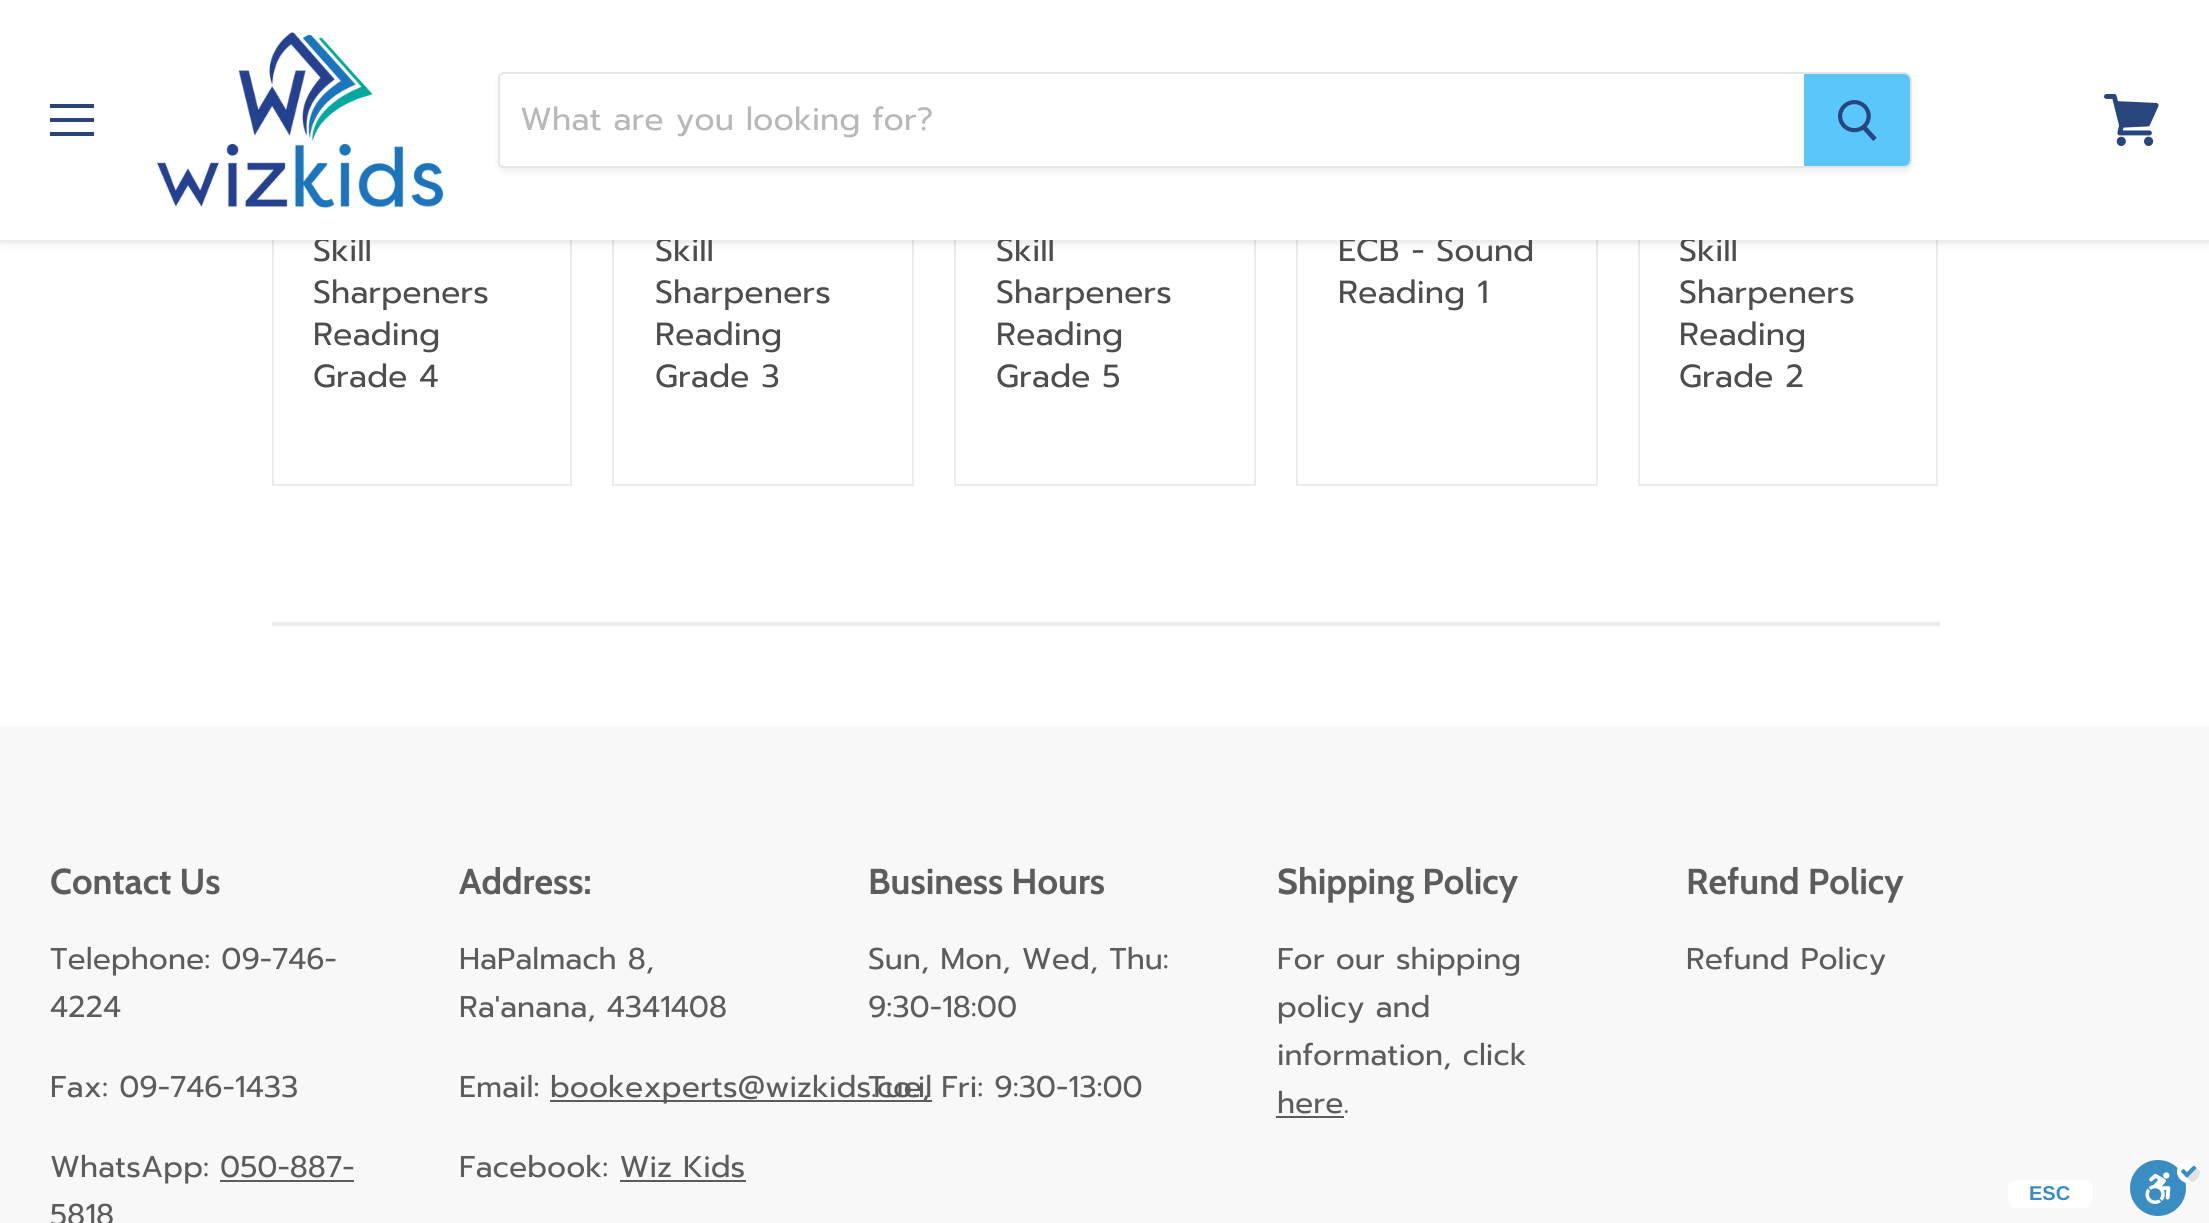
import math
import cairo

surface = cairo.ImageSurface(cairo.Format.RGB24, 2209, 1223)
ctx = cairo.Context(surface)
options = cairo.FontOptions()
options.set_hint_metrics(cairo.HintMetrics.OFF)
options.set_hint_style(cairo.HintStyle.NONE)
ctx.set_font_options(options)
ctx.set_miter_limit(4)


def ink(r, g, b):
    ctx.set_source_rgb(r / 255, g / 255, b / 255)


def write(x, y, s, family, size, color, bold=False, italic=False):
    ctx.select_font_face(family, cairo.FontSlant.ITALIC if italic else cairo.FontSlant.NORMAL, cairo.FontWeight.BOLD if bold else cairo.FontWeight.NORMAL)
    ctx.set_font_size(size)
    ink(*color)
    ctx.move_to(x, y)
    ctx.show_text(s)


def block(x, y, w, h, *color):
    ink(*color)
    ctx.rectangle(x, y, w, h)
    ctx.fill()


def round_path(x, y, w, h, r):
    ctx.new_sub_path()
    for i, (u, v) in enumerate([(x + w - r, y + h - r), (x + r, y + h - r), (x + r, y + r), (x + w - r, y + r)]):
        ctx.arc(u, v, r, i * math.pi / 2, (i + 1) * math.pi / 2)
    ctx.close_path()


def blur_box(x, y, w, h, r, blur, alpha):
    ctx.push_group_with_content(cairo.Content.ALPHA)
    ctx.set_operator(cairo.Operator.SOURCE)
    for i in range(15, -16, -2):
        e = blur * i / 6
        if min(w, h) + 2 * e > 0:
            ctx.set_source_rgba(0, 0, 0, alpha * math.erfc((i - 1) / 8.5) / 2)
            round_path(x - e, y - e, w + 2 * e, h + 2 * e, max(0, min(r + e + blur * .6, min(w, h) / 2 + e)))
            ctx.fill()
    ctx.mask(ctx.pop_group())


def paste(path, x, y, w, h):
    ctx.save()
    ctx.set_source_surface(cairo.ImageSurface.create_from_png(path), x, y)
    ctx.rectangle(x, y, w, h)
    ctx.fill()
    ctx.restore()


s1 = dict(family="Prompt", size=32, color=(77, 77, 77))
s2 = dict(family="Prompt", size=32, color=(184, 184, 184))
s3 = dict(family="Cabin", size=36, color=(92, 92, 92), bold=True)
s4 = dict(family="Prompt", size=30, color=(92, 92, 92))
s5 = dict(family="Liberation Sans", size=20, color=(58, 141, 194), bold=True)

ink(255, 255, 255)
ctx.paint()
ctx.rectangle(273, -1, 298, 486)
ink(235, 235, 235)
ctx.stroke()
ctx.rectangle(613, -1, 300, 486)
ctx.stroke()
ctx.rectangle(955, -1, 300, 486)
ctx.stroke()
ctx.rectangle(1297, -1, 300, 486)
ctx.stroke()
ctx.rectangle(1639, -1, 298, 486)
ctx.stroke()
ink(127, 127, 127)
blur_box(0, 126, 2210, 116, 0, 4, 0.25)
write(313, 261, "Skill", **s1)
write(655, 261, "Skill", **s1)
write(996, 261, "Skill", **s1)
write(1338, 261, "ECB - Sound", **s1)
write(1679, 261, "Skill", **s1)
block(0, 0, 2209, 240, 255, 255, 255)
block(50, 104, 44, 4, 40, 69, 125)
block(50, 118, 44, 4, 40, 69, 125)
block(50, 132, 44, 4, 40, 69, 125)
paste("pic1.png", 157, 32, 287, 176)
ctx.save()
ctx.set_fill_rule(cairo.FillRule.EVEN_ODD)
ctx.new_path()
ctx.move_to(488, 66)
ctx.line_to(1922, 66)
ctx.line_to(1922, 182)
ctx.line_to(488, 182)
ctx.close_path()
ctx.move_to(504, 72)
ctx.line_to(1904, 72)
ctx.curve_to(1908.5, 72, 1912, 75.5, 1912, 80)
ctx.line_to(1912, 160)
ctx.curve_to(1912, 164.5, 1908.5, 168, 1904, 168)
ctx.line_to(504, 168)
ctx.curve_to(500.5, 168, 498, 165.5, 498, 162)
ctx.line_to(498, 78)
ctx.curve_to(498, 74.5, 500.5, 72, 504, 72)
ctx.close_path()
ctx.clip()
ink(127, 127, 127)
blur_box(498, 76, 1414, 96, 8, 3, 0.11)
ctx.restore()
ctx.new_path()
ctx.move_to(504, 73)
ctx.line_to(1904, 73)
ctx.curve_to(1908, 73, 1911, 76, 1911, 80)
ctx.line_to(1911, 160)
ctx.curve_to(1911, 164, 1908, 167, 1904, 167)
ctx.line_to(504, 167)
ctx.curve_to(501, 167, 499, 165, 499, 162)
ctx.line_to(499, 78)
ctx.curve_to(499, 75, 501, 73, 504, 73)
ctx.close_path()
ctx.set_source_rgba(0.498, 0.498, 0.498, 0.2)
ctx.stroke()
write(520, 130, "What are you looking for?", **s2)
ink(89, 199, 249)
ctx.new_path()
ctx.move_to(1805, 75)
ctx.line_to(1904, 75)
ctx.curve_to(1907, 75, 1909, 77, 1909, 80)
ctx.line_to(1909, 160)
ctx.curve_to(1909, 163, 1907, 165, 1904, 165)
ctx.line_to(1805, 165)
ctx.close_path()
ctx.fill_preserve()
ctx.stroke()
paste("pic2.png", 1838, 100, 39, 41)
paste("pic3.png", 2104, 94, 55, 52)
write(313, 303, "Sharpeners", **s1)
write(313, 345, "Reading", **s1)
write(313, 387, "Grade 4", **s1)
write(655, 303, "Sharpeners", **s1)
write(655, 345, "Reading", **s1)
write(655, 387, "Grade 3", **s1)
write(996, 303, "Sharpeners", **s1)
write(996, 345, "Reading", **s1)
write(996, 387, "Grade 5", **s1)
write(1338, 303, "Reading 1", **s1)
write(1679, 303, "Sharpeners", **s1)
write(1679, 345, "Reading", **s1)
write(1679, 387, "Grade 2", **s1)
block(272, 622, 1668, 4, 235, 235, 235)
block(0, 726, 2209, 497, 248, 248, 248)
write(50, 894, "Contact Us", **s3)
write(50, 969, "Telephone: 09-746-", **s4)
write(50, 1017, "4224", **s4)
write(50, 1097, "Fax: 09-746-1433", **s4)
write(50, 1177, "WhatsApp: 050-887-", **s4)
write(50, 1225, "5818", **s4)
block(220, 1180, 134, 2, 92, 92, 92)
write(459, 894, "Address:", **s3)
write(459, 969, "HaPalmach 8,", **s4)
write(459, 1017, "Ra'anana, 4341408", **s4)
write(459, 1097, "Email:", **s4)
block(550, 1100, 382, 2, 92, 92, 92)
write(550, 1097, "bookexperts@wizkids.co.il", **s4)
write(459, 1177, "Facebook: Wiz Kids", **s4)
block(620, 1180, 126, 2, 92, 92, 92)
write(868, 894, "Business Hours", **s3)
write(868, 969, "Sun, Mon, Wed, Thu:", **s4)
write(868, 1017, "9:30-18:00", **s4)
write(868, 1097, "Tue, Fri: 9:30-13:00", **s4)
write(1277, 894, "Shipping Policy", **s3)
write(1277, 969, "For our shipping", **s4)
write(1277, 1017, "policy and", **s4)
write(1277, 1065, "information, click", **s4)
write(1277, 1113, "here.", **s4)
block(1276, 1116, 68, 2, 92, 92, 92)
write(1686, 894, "Refund Policy", **s3)
write(1686, 969, "Refund Policy", **s4)
ink(255, 255, 255)
round_path(2008, 1180, 84, 28, 8)
ctx.fill()
write(2029, 1200, "ESC", **s5)
paste("pic4.png", 2130, 1160, 70, 56)
surface.write_to_png("screenshot.png")
